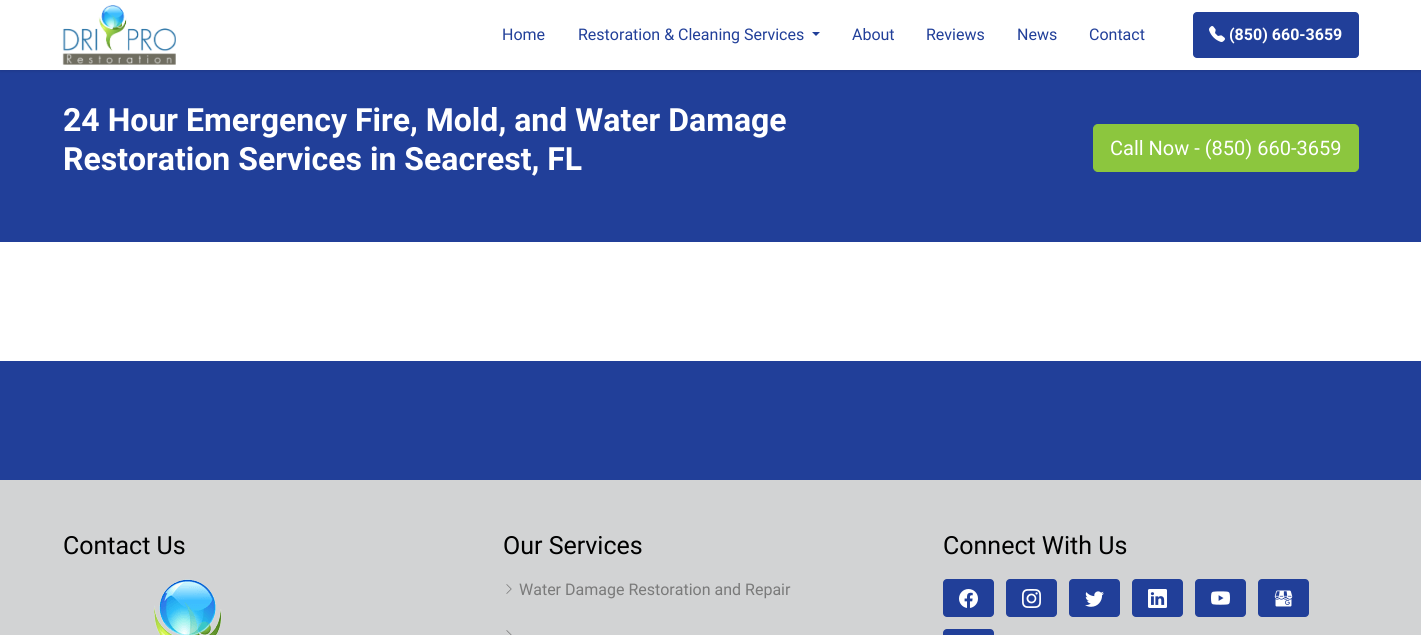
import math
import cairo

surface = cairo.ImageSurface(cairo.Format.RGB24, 1421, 635)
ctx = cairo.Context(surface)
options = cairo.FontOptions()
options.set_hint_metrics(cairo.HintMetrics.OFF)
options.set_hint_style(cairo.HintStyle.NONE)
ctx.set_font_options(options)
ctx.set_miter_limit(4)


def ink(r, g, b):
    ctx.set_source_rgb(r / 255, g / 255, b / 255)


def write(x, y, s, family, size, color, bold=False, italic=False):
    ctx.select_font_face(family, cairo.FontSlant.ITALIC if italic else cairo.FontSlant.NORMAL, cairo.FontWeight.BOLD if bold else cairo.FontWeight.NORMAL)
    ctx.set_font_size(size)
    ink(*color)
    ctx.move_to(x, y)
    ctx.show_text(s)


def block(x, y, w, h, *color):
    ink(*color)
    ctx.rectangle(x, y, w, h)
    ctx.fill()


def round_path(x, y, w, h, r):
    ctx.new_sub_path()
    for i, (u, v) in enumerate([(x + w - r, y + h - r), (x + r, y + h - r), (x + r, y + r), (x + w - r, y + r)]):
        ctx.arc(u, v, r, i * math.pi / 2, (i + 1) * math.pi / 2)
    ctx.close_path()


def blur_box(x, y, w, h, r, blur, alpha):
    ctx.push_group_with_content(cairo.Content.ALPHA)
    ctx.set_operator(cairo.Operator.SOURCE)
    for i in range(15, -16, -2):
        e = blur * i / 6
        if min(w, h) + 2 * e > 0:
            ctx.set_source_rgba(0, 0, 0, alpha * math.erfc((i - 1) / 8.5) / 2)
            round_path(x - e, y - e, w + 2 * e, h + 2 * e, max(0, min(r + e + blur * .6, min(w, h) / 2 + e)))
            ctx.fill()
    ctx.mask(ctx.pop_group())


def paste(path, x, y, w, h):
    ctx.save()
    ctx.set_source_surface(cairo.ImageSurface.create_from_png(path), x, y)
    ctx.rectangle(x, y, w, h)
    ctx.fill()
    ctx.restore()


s1 = dict(family="Roboto", size=16, color=(33, 63, 153))
s2 = dict(family="Roboto", size=16, color=(255, 255, 255), bold=True)
s3 = dict(family="Roboto", size=32, color=(255, 255, 255), bold=True)
s4 = dict(family="Roboto", size=20, color=(255, 255, 255))
s5 = dict(family="Roboto", size=25, color=(0, 0, 0))
s6 = dict(family="Roboto", size=16, color=(122, 122, 122))

ink(255, 255, 255)
ctx.paint()
block(0, 70, 1421, 172, 33, 63, 153)
ink(0, 0, 0)
blur_box(0, 1, 1421, 70, 0, 1.5, 0.12)
block(0, 0, 1421, 70, 255, 255, 255)
paste("pic1.png", 62, 5, 114, 60)
write(502, 40, "Home", **s1)
write(578, 40, "Restoration & Cleaning Services", **s1)
ctx.new_path()
ctx.move_to(812, 32)
ctx.line_to(820, 32)
ctx.line_to(816, 36)
ctx.close_path()
ctx.fill()
write(852, 40, "About", **s1)
write(926, 40, "Reviews", **s1)
write(1017, 40, "News", **s1)
write(1089, 40, "Contact", **s1)
round_path(1193, 12, 166, 46, 4)
ctx.fill()
paste("pic2.png", 1209, 26, 16, 16)
write(1229, 40, "(850) 660-3659", **s2)
write(63, 131, "24 Hour Emergency Fire, Mold, and Water Damage", **s3)
write(63, 170, "Restoration Services in Seacrest, FL", **s3)
ink(140, 198, 62)
round_path(1093.5, 124.5, 265, 47, 4.5)
ctx.fill_preserve()
ctx.set_line_width(1)
ctx.stroke()
write(1110, 155, "Call Now - (850) 660-3659", **s4)
block(0, 361, 1421, 119, 33, 63, 153)
block(0, 480, 1421, 155, 210, 211, 212)
write(63, 554, "Contact Us", **s5)
paste("pic3.png", 154, 579, 68, 56)
write(503, 554, "Our Services", **s5)
paste("pic4.png", 506, 584, 6, 10)
write(519, 595, "Water Damage Restoration and Repair", **s6)
paste("pic5.png", 506, 630, 6, 5)
write(943, 554, "Connect With Us", **s5)
ink(33, 63, 153)
round_path(943, 579, 51, 38, 4)
ctx.fill()
paste("pic6.png", 959, 589, 19, 19)
round_path(1006, 579, 51, 38, 4)
ctx.fill()
paste("pic7.png", 1022, 589, 19, 19)
round_path(1069, 579, 51, 38, 4)
ctx.fill()
paste("pic8.png", 1085, 591, 19, 16)
round_path(1132, 579, 51, 38, 4)
ctx.fill()
paste("pic9.png", 1148, 589, 19, 19)
round_path(1195, 579, 51, 38, 4)
ctx.fill()
paste("pic10.png", 1211, 591, 19, 14)
round_path(1258, 579, 51, 38, 4)
ctx.fill()
paste("pic11.png", 1274, 590, 19, 17)
round_path(943, 629, 51, 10, 4)
ctx.fill()
surface.write_to_png("screenshot.png")
